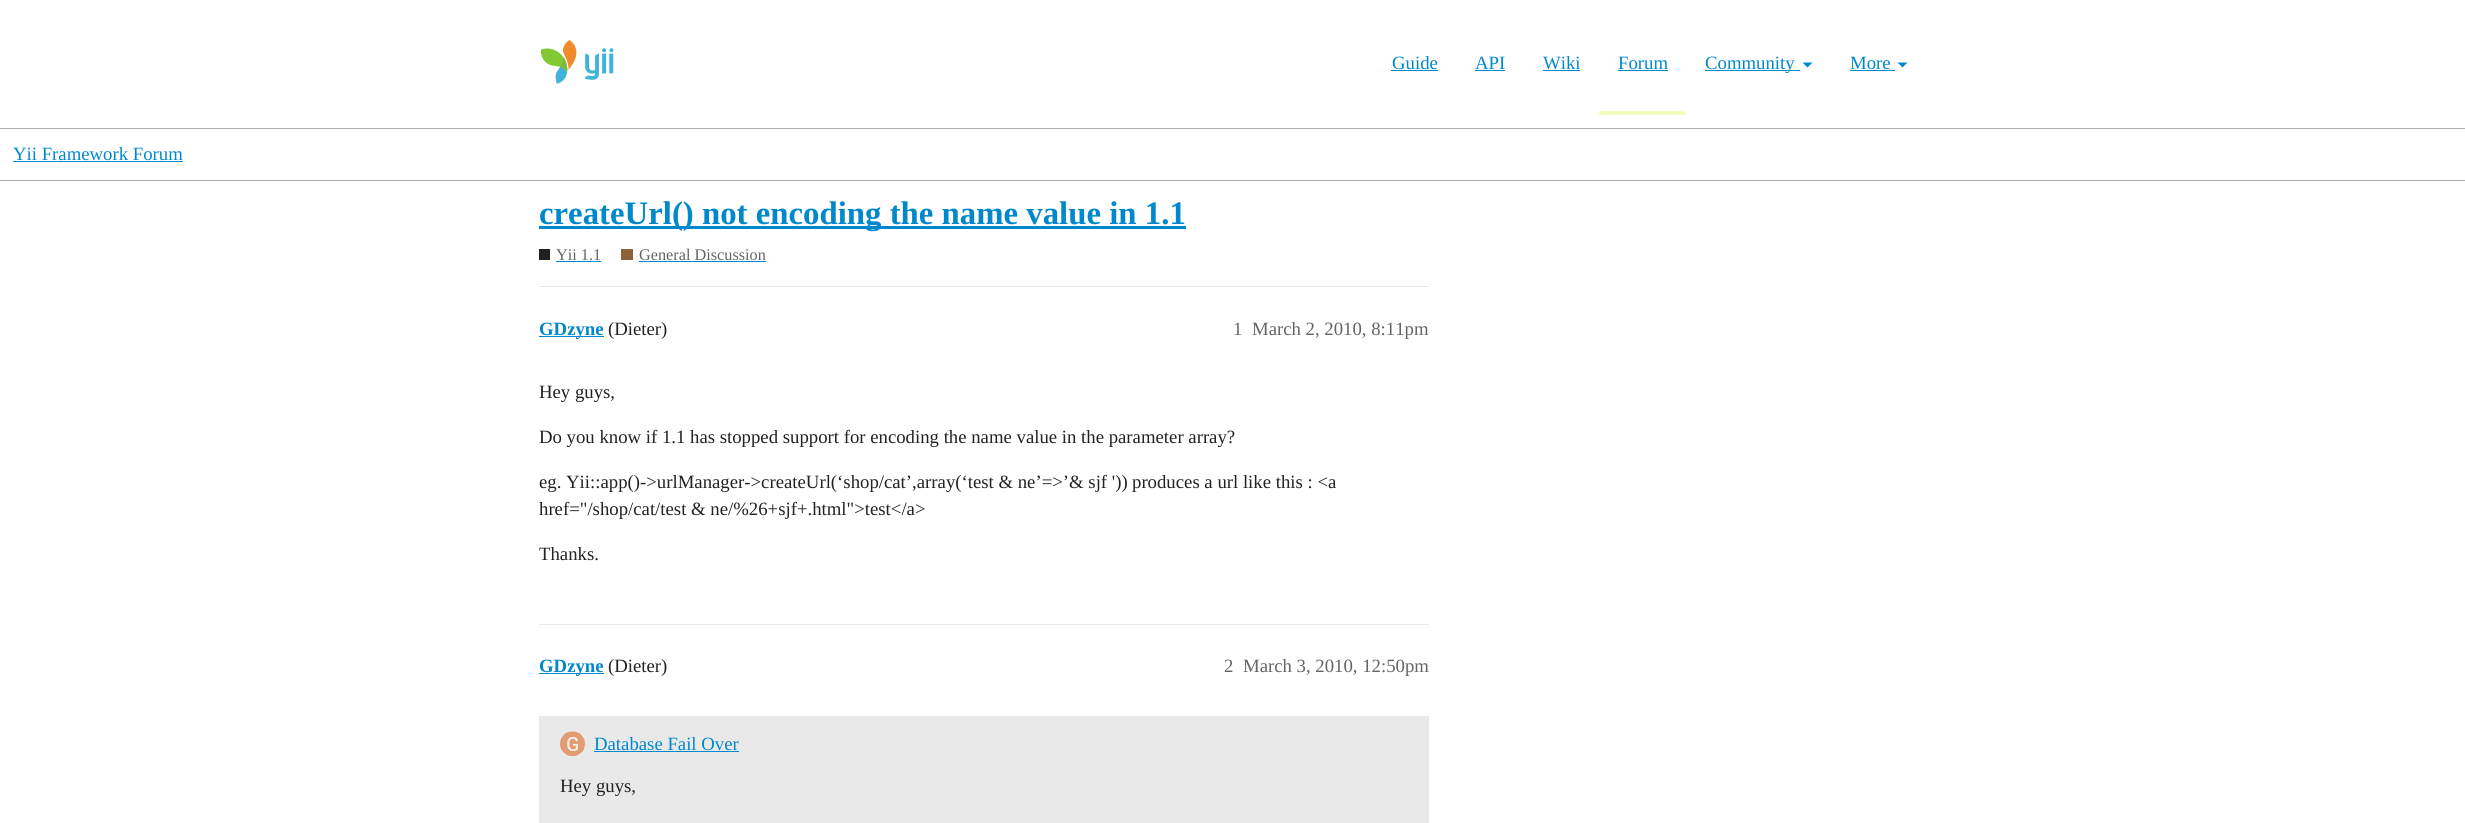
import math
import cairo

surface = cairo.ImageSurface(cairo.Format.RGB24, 2465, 823)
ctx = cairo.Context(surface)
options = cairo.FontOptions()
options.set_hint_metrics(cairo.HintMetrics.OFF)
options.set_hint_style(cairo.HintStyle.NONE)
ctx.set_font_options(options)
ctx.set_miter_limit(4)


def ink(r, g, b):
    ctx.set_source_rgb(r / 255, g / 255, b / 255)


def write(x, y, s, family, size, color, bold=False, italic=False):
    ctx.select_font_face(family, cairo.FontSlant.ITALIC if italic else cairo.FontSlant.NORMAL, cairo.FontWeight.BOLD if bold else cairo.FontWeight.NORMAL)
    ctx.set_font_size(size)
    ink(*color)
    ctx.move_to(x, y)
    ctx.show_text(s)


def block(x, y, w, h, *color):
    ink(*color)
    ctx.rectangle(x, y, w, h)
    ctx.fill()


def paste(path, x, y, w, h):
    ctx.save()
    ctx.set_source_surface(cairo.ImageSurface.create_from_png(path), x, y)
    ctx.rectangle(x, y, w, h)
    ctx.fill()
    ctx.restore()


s1 = dict(family="Liberation Serif", size=18.75, color=(0, 136, 204))
s2 = dict(family="Liberation Serif", size=32.8, color=(0, 136, 204), bold=True)
s3 = dict(family="Liberation Serif", size=16.25, color=(100, 100, 100))
s4 = dict(family="Liberation Serif", size=18.75, color=(0, 136, 204), bold=True)
s5 = dict(family="Liberation Serif", size=18.75, color=(34, 34, 34))
s6 = dict(family="Liberation Serif", size=18.75, color=(100, 100, 100))

ink(255, 255, 255)
ctx.paint()
block(0, 128, 2465, 1, 175, 175, 175)
paste("pic1.png", 540, 40, 74, 44)
write(1392, 69, "Guide", **s1)
block(1391, 70, 47, 1, 0, 136, 204)
write(1475, 69, "API", **s1)
block(1475, 70, 30, 1, 0, 136, 204)
write(1543, 69, "Wiki", **s1)
block(1543, 70, 37, 1, 0, 136, 204)
block(1599, 111, 87, 4, 243, 255, 189)
write(1618, 69, "Forum", **s1)
block(1618, 70, 50, 1, 0, 136, 204)
block(1705, 70, 95, 1, 0, 136, 204)
write(1705, 69, "Community", **s1)
ctx.new_path()
ctx.move_to(1802.5, 62.5)
ctx.line_to(1812.5, 62.5)
ctx.line_to(1807.5, 67.5)
ctx.close_path()
ctx.fill()
write(1850, 69, "More", **s1)
block(1850, 70, 45, 1, 0, 136, 204)
ctx.new_path()
ctx.move_to(1897.5, 62.5)
ctx.line_to(1907.5, 62.5)
ctx.line_to(1902.5, 67.5)
ctx.close_path()
ctx.fill()
block(0, 180, 2465, 1, 175, 175, 175)
write(13, 160, "Yii Framework Forum", **s1)
block(13, 161, 170, 1, 0, 136, 204)
block(539, 226, 647, 3, 0, 136, 204)
write(539, 224, "createUrl() not encoding the name value in 1.1", **s2)
block(539, 249, 11, 11, 35, 31, 32)
write(556, 260, "Yii 1.1", **s3)
block(556, 261, 45, 1, 0, 136, 204)
block(621, 249, 12, 11, 140, 98, 56)
write(639, 260, "General Discussion", **s3)
block(639, 261, 127, 1, 0, 136, 204)
block(539, 286, 890, 1, 233, 233, 233)
block(539, 336, 65, 1, 0, 136, 204)
write(539, 335, "GDzyne", **s4)
write(608, 335, "(Dieter)", **s5)
write(1233, 335, "1", **s6)
write(1252, 335, "March 2, 2010, 8:11pm", **s6)
write(539, 398, "Hey guys,", **s5)
write(539, 443, "Do you know if 1.1 has stopped support for encoding the name value in the parameter array?", **s5)
write(539, 488, "eg. Yii::app()->urlManager->createUrl(‘shop/cat’,array(‘test & ne’=>’& sjf '))", **s5)
write(1132, 488, "produces a url like this : <a", **s5)
write(539, 515, "href=\"/shop/cat/test & ne/%26+sjf+.html\">test</a>", **s5)
write(539, 560, "Thanks.", **s5)
block(539, 624, 890, 1, 233, 233, 233)
block(539, 673, 65, 1, 0, 136, 204)
write(539, 672, "GDzyne", **s4)
write(608, 672, "(Dieter)", **s5)
write(1224, 672, "2", **s6)
write(1243, 672, "March 3, 2010, 12:50pm", **s6)
block(539, 716, 890, 107, 233, 233, 233)
paste("pic2.png", 560, 731, 25, 26)
write(594, 750, "Database Fail Over", **s1)
block(594, 751, 145, 1, 0, 136, 204)
write(560, 792, "Hey guys,", **s5)
surface.write_to_png("screenshot.png")
